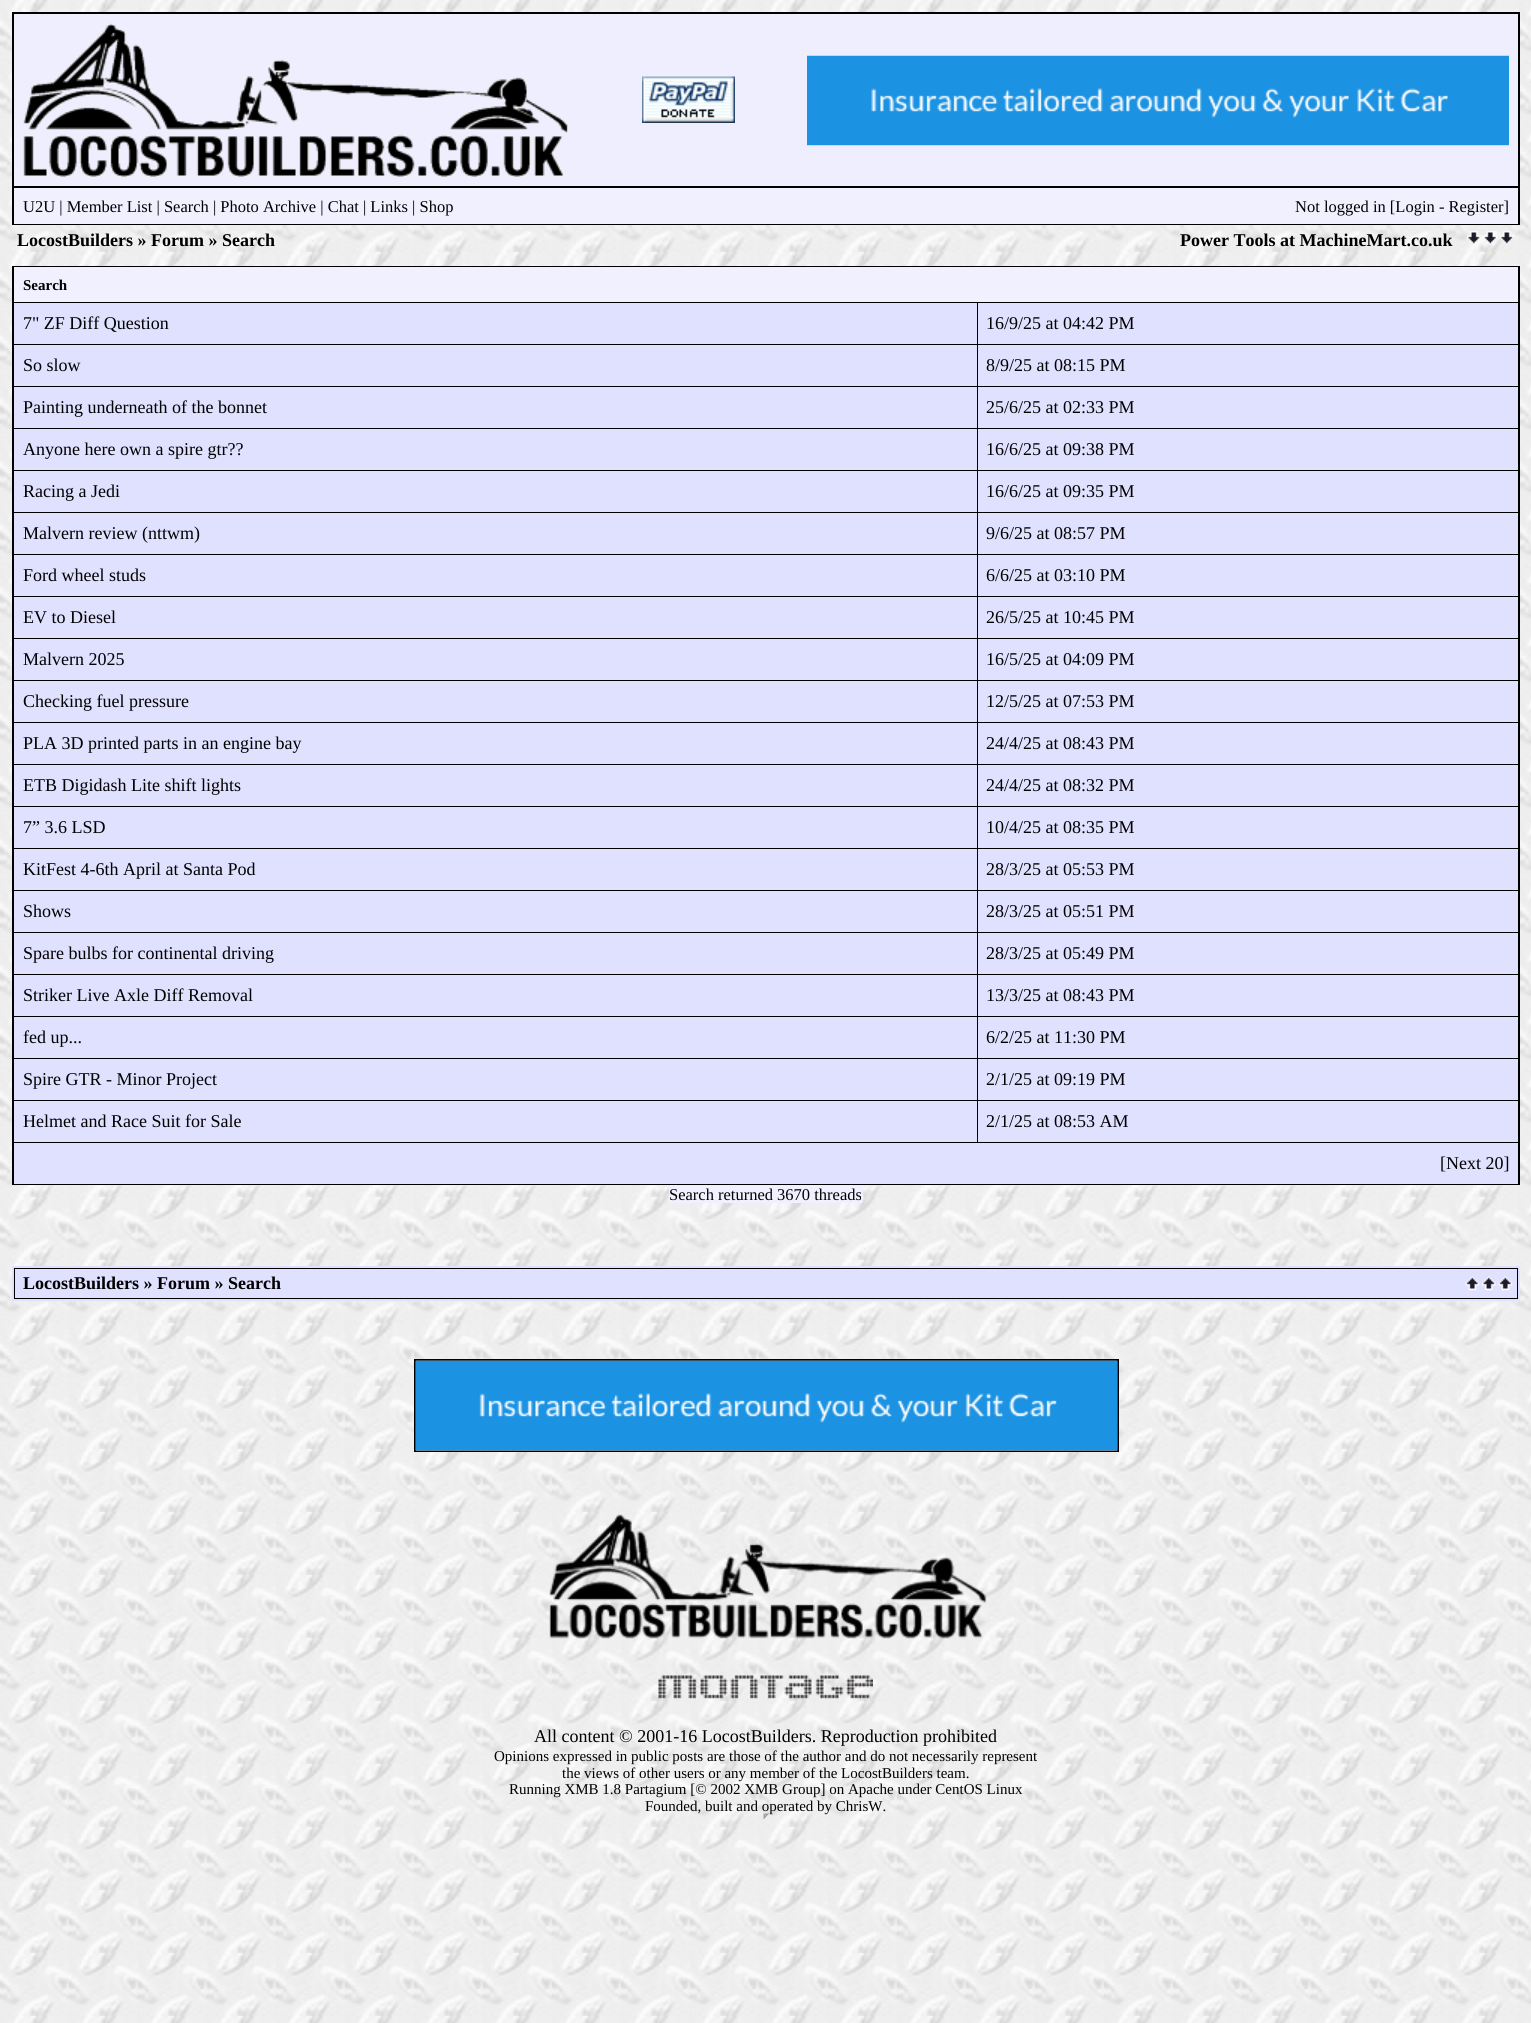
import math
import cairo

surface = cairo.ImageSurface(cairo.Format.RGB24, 1531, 2023)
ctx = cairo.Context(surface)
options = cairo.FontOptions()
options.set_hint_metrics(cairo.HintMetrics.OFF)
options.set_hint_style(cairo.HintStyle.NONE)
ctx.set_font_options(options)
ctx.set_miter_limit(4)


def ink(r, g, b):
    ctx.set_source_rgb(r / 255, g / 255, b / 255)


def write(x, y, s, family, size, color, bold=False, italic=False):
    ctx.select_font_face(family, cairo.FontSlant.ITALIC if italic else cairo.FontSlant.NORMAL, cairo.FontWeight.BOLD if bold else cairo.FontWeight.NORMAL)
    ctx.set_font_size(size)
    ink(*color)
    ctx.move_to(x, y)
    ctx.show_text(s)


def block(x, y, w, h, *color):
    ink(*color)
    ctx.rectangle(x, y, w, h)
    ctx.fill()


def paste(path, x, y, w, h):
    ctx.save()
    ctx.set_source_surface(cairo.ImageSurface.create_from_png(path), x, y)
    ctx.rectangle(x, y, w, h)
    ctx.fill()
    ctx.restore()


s1 = dict(family="Liberation Serif", size=16.5, color=(0, 0, 0))
s2 = dict(family="Liberation Serif", size=18, color=(0, 0, 0), bold=True)
s3 = dict(family="Liberation Serif", size=15, color=(0, 0, 0), bold=True)
s4 = dict(family="Liberation Serif", size=18, color=(0, 0, 0))
s5 = dict(family="Liberation Serif", size=15, color=(0, 0, 0))

ink(255, 255, 255)
ctx.paint()
paste("pic1.png", 0, 0, 1531, 2023)
block(12, 12, 1508, 213, 0, 0, 0)
block(14, 14, 1504, 172, 238, 238, 255)
paste("pic2.png", 23, 23, 545, 154)
paste("pic3.png", 642, 76, 93, 47)
paste("pic4.png", 807, 55, 702, 91)
block(14, 188, 1504, 36, 240, 240, 255)
write(23, 212, "U2U | Member List | Search | Photo Archive | Chat | Links | Shop", **s1)
write(1295, 212, "Not logged in [Login - Register]", **s1)
write(17, 246, "LocostBuilders » Forum » Search", **s2)
write(1180, 246, "Power Tools at MachineMart.co.uk", **s2)
paste("pic5.png", 1467, 231, 47, 14)
block(12, 266, 1508, 919, 0, 0, 0)
block(14, 267, 1504, 35, 240, 240, 255)
write(23, 290, "Search", **s3)
block(14, 303, 963, 41, 224, 224, 255)
write(23, 329, "7\" ZF Diff Question", **s4)
block(978, 303, 540, 41, 224, 224, 255)
write(986, 329, "16/9/25 at 04:42 PM", **s4)
block(14, 345, 963, 41, 224, 224, 255)
write(23, 371, "So slow", **s4)
block(978, 345, 540, 41, 224, 224, 255)
write(986, 371, "8/9/25 at 08:15 PM", **s4)
block(14, 387, 963, 41, 224, 224, 255)
write(23, 413, "Painting underneath of the bonnet", **s4)
block(978, 387, 540, 41, 224, 224, 255)
write(986, 413, "25/6/25 at 02:33 PM", **s4)
block(14, 429, 963, 41, 224, 224, 255)
write(23, 455, "Anyone here own a spire gtr??", **s4)
block(978, 429, 540, 41, 224, 224, 255)
write(986, 455, "16/6/25 at 09:38 PM", **s4)
block(14, 471, 963, 41, 224, 224, 255)
write(23, 497, "Racing a Jedi", **s4)
block(978, 471, 540, 41, 224, 224, 255)
write(986, 497, "16/6/25 at 09:35 PM", **s4)
block(14, 513, 963, 41, 224, 224, 255)
write(23, 539, "Malvern review (nttwm)", **s4)
block(978, 513, 540, 41, 224, 224, 255)
write(986, 539, "9/6/25 at 08:57 PM", **s4)
block(14, 555, 963, 41, 224, 224, 255)
write(23, 581, "Ford wheel studs", **s4)
block(978, 555, 540, 41, 224, 224, 255)
write(986, 581, "6/6/25 at 03:10 PM", **s4)
block(14, 597, 963, 41, 224, 224, 255)
write(23, 623, "EV to Diesel", **s4)
block(978, 597, 540, 41, 224, 224, 255)
write(986, 623, "26/5/25 at 10:45 PM", **s4)
block(14, 639, 963, 41, 224, 224, 255)
write(23, 665, "Malvern 2025", **s4)
block(978, 639, 540, 41, 224, 224, 255)
write(986, 665, "16/5/25 at 04:09 PM", **s4)
block(14, 681, 963, 41, 224, 224, 255)
write(23, 707, "Checking fuel pressure", **s4)
block(978, 681, 540, 41, 224, 224, 255)
write(986, 707, "12/5/25 at 07:53 PM", **s4)
block(14, 723, 963, 41, 224, 224, 255)
write(23, 749, "PLA 3D printed parts in an engine bay", **s4)
block(978, 723, 540, 41, 224, 224, 255)
write(986, 749, "24/4/25 at 08:43 PM", **s4)
block(14, 765, 963, 41, 224, 224, 255)
write(23, 791, "ETB Digidash Lite shift lights", **s4)
block(978, 765, 540, 41, 224, 224, 255)
write(986, 791, "24/4/25 at 08:32 PM", **s4)
block(14, 807, 963, 41, 224, 224, 255)
write(23, 833, "7” 3.6 LSD", **s4)
block(978, 807, 540, 41, 224, 224, 255)
write(986, 833, "10/4/25 at 08:35 PM", **s4)
block(14, 849, 963, 41, 224, 224, 255)
write(23, 875, "KitFest 4-6th April at Santa Pod", **s4)
block(978, 849, 540, 41, 224, 224, 255)
write(986, 875, "28/3/25 at 05:53 PM", **s4)
block(14, 891, 963, 41, 224, 224, 255)
write(23, 917, "Shows", **s4)
block(978, 891, 540, 41, 224, 224, 255)
write(986, 917, "28/3/25 at 05:51 PM", **s4)
block(14, 933, 963, 41, 224, 224, 255)
write(23, 959, "Spare bulbs for continental driving", **s4)
block(978, 933, 540, 41, 224, 224, 255)
write(986, 959, "28/3/25 at 05:49 PM", **s4)
block(14, 975, 963, 41, 224, 224, 255)
write(23, 1001, "Striker Live Axle Diff Removal", **s4)
block(978, 975, 540, 41, 224, 224, 255)
write(986, 1001, "13/3/25 at 08:43 PM", **s4)
block(14, 1017, 963, 41, 224, 224, 255)
write(23, 1043, "fed up...", **s4)
block(978, 1017, 540, 41, 224, 224, 255)
write(986, 1043, "6/2/25 at 11:30 PM", **s4)
block(14, 1059, 963, 41, 224, 224, 255)
write(23, 1085, "Spire GTR - Minor Project", **s4)
block(978, 1059, 540, 41, 224, 224, 255)
write(986, 1085, "2/1/25 at 09:19 PM", **s4)
block(14, 1101, 963, 41, 224, 224, 255)
write(23, 1127, "Helmet and Race Suit for Sale", **s4)
block(978, 1101, 540, 41, 224, 224, 255)
write(986, 1127, "2/1/25 at 08:53 AM", **s4)
block(14, 1143, 1504, 41, 224, 224, 255)
write(1440, 1169, "[Next 20]", **s4)
block(669, 1185, 194, 18, 240, 240, 255)
write(669, 1200, "Search returned 3670 threads", **s1)
block(12, 1266, 1508, 35, 224, 224, 255)
block(14, 1268, 1504, 31, 0, 0, 0)
block(15, 1269, 1502, 29, 224, 224, 255)
write(23, 1289, "LocostBuilders » Forum » Search", **s2)
paste("pic6.png", 1465, 1276, 48, 15)
block(414, 1359, 705, 93, 0, 0, 0)
paste("pic7.png", 415, 1360, 703, 91)
paste("pic8.png", 549, 1514, 438, 125)
paste("pic9.png", 658, 1675, 215, 24)
write(534, 1742, "All content © 2001-16 LocostBuilders. Reproduction prohibited", **s4)
write(494, 1761, "Opinions expressed in public posts are those of the author and do not necessarily represent", **s5)
write(562, 1778, "the views of other users or any member of the LocostBuilders team.", **s5)
write(509, 1794, "Running XMB 1.8 Partagium [© 2002 XMB Group] on Apache under CentOS Linux", **s5)
write(645, 1811, "Founded, built and operated by ChrisW.", **s5)
ink(159, 159, 159)
ctx.new_path()
ctx.move_to(763.5, 1813.5)
ctx.line_to(769.5, 1813.5)
ctx.line_to(766.5, 1816.5)
ctx.close_path()
ctx.fill()
ink(238, 238, 238)
ctx.new_path()
ctx.move_to(769.5, 1813.5)
ctx.line_to(769.5, 1819.5)
ctx.line_to(766.5, 1816.5)
ctx.close_path()
ctx.fill()
ctx.new_path()
ctx.move_to(769.5, 1819.5)
ctx.line_to(763.5, 1819.5)
ctx.line_to(766.5, 1816.5)
ctx.close_path()
ctx.fill()
ink(159, 159, 159)
ctx.new_path()
ctx.move_to(763.5, 1819.5)
ctx.line_to(763.5, 1813.5)
ctx.line_to(766.5, 1816.5)
ctx.close_path()
ctx.fill()
surface.write_to_png("screenshot.png")
